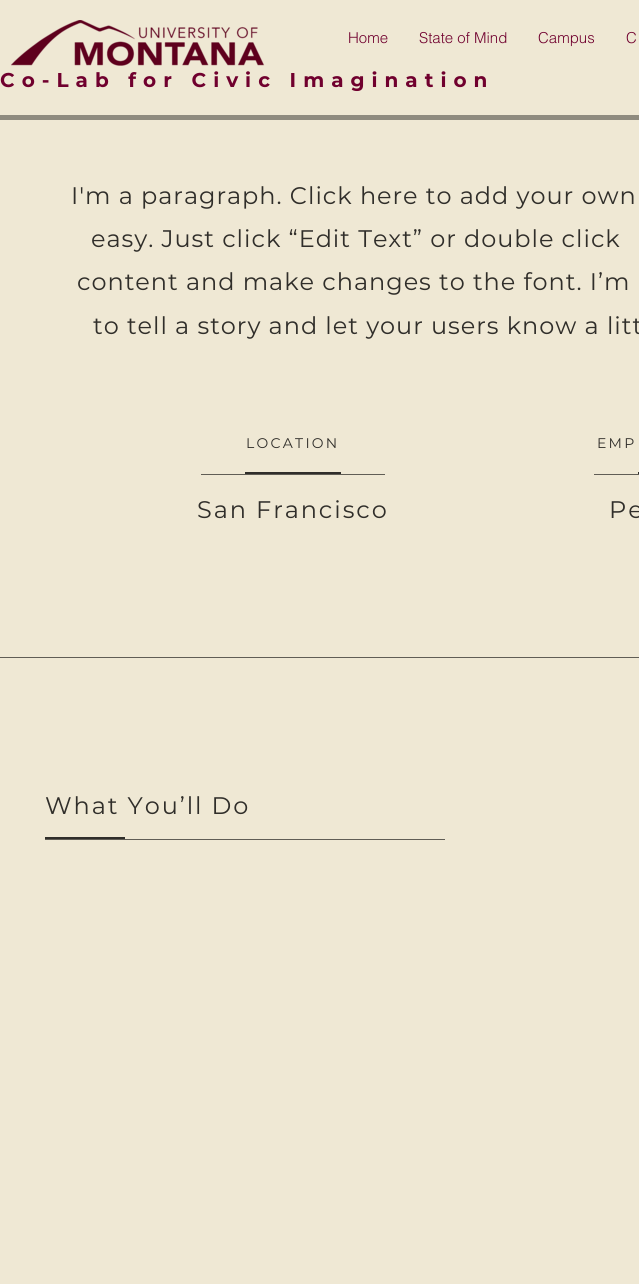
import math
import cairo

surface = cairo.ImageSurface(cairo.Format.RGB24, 639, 1284)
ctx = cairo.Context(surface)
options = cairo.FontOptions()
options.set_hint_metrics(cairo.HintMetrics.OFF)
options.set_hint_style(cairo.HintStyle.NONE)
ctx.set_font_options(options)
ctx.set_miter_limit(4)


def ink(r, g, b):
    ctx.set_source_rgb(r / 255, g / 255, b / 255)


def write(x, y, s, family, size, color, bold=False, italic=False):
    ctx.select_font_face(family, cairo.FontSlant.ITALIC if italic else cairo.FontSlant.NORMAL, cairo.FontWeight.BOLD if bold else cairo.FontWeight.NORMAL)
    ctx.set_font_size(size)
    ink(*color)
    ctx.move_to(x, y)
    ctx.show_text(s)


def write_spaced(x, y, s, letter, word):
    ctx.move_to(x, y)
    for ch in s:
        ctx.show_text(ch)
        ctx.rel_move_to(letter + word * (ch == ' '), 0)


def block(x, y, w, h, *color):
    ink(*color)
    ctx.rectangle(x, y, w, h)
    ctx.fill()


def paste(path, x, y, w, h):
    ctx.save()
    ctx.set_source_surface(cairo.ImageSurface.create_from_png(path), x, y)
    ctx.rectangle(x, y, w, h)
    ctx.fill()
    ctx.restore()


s1 = dict(family="helvetica Light", size=15, color=(112, 0, 46))

ink(239, 232, 212)
ctx.paint()
write(348, 43, "Home", **s1)
write(419, 43, "State of Mind", **s1)
write(538, 43, "Campus", **s1)
write(626, 43, "C", **s1)
paste("pic1.png", 11, 20, 254, 46)
ctx.select_font_face("Montserrat", cairo.FontSlant.NORMAL, cairo.FontWeight.BOLD)
ctx.set_font_size(20)
write_spaced(0, 87, "Co-Lab for Civic Imagination", 7, 0)
block(0, 115, 639, 5, 143, 139, 127)
ctx.select_font_face("Montserrat")
ctx.set_font_size(24)
ink(48, 46, 42)
write_spaced(71, 204, "I'm a paragraph. Click here to add your own", 0.95, 0)
write_spaced(91, 247, "easy. Just click “Edit Text” or double click", 0.95, 0)
write_spaced(77, 290, "content and make changes to the font. I’m", 0.95, 0)
write_spaced(93, 334, "to tell a story and let your users know a litt", 0.95, 0)
ctx.set_font_size(14)
write_spaced(246, 448, "LOCATION", 2.25, 0)
write_spaced(597, 448, "EMP", 2.25, 0)
block(245, 472, 96, 2, 48, 46, 42)
block(638, 472, 1, 3, 48, 46, 42)
block(201, 474, 184, 1, 96, 93, 85)
block(594, 474, 45, 1, 96, 93, 85)
ctx.set_font_size(24)
ink(48, 46, 42)
write_spaced(197, 518, "San Francisco", 1.9, 0)
write_spaced(609, 518, "Pe", 1.9, 0)
block(0, 657, 639, 1, 96, 93, 85)
ink(48, 46, 42)
write_spaced(45, 814, "What You’ll Do", 1.9, 0)
block(45, 837, 80, 2, 48, 46, 42)
block(45, 839, 400, 1, 96, 93, 85)
surface.write_to_png("screenshot.png")
